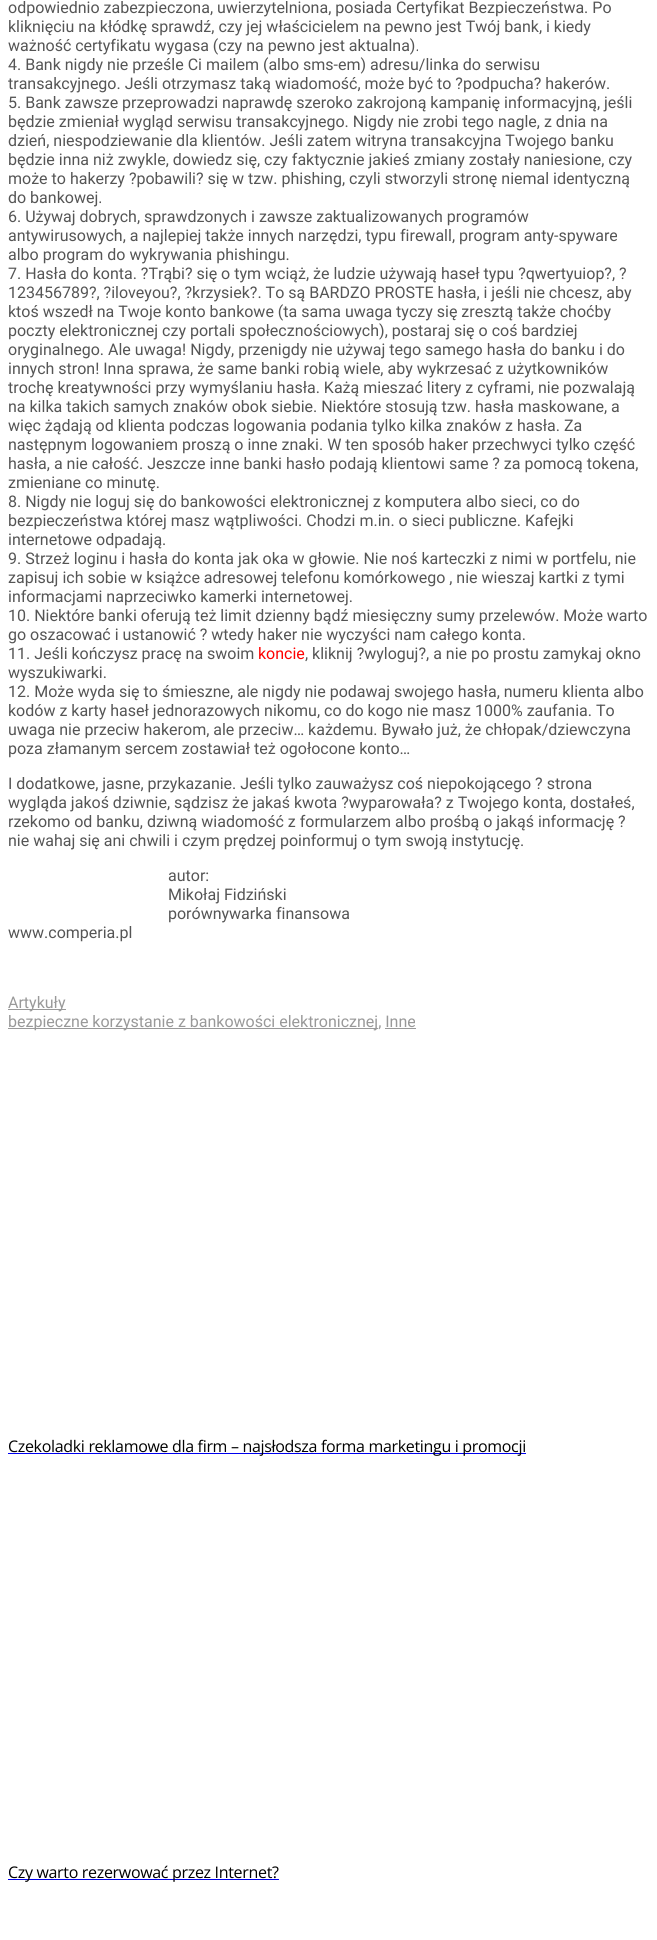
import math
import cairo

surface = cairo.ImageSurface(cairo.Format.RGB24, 657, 1940)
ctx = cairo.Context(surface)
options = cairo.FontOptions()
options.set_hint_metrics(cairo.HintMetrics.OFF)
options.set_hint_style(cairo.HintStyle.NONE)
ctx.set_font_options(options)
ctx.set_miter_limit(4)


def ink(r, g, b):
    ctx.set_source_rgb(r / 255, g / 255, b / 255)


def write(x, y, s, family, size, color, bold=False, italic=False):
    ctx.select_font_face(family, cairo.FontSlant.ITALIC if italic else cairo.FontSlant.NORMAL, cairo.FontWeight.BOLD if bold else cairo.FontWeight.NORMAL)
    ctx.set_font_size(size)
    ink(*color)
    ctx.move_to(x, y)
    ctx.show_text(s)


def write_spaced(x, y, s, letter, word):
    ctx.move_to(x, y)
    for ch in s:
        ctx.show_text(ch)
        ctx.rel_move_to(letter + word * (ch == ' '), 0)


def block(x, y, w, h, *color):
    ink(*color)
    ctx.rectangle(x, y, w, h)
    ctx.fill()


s1 = dict(family="Roboto", size=16, color=(85, 85, 85))
s2 = dict(family="Roboto", size=16, color=(255, 0, 0))
s3 = dict(family="Roboto", size=16, color=(153, 153, 153))

ink(255, 255, 255)
ctx.paint()
write(8, 13, "odpowiednio zabezpieczona, uwierzytelniona, posiada Certyfikat Bezpieczeństwa. Po", **s1)
write(8, 32, "kliknięciu na kłódkę sprawdź, czy jej właścicielem na pewno jest Twój bank, i kiedy", **s1)
write(8, 51, "ważność certyfikatu wygasa (czy na pewno jest aktualna).", **s1)
write(8, 70, "4. Bank nigdy nie prześle Ci mailem (albo sms-em) adresu/linka do serwisu", **s1)
write(8, 89, "transakcyjnego. Jeśli otrzymasz taką wiadomość, może być to ?podpucha? hakerów.", **s1)
write(8, 108, "5. Bank zawsze przeprowadzi naprawdę szeroko zakrojoną kampanię informacyjną, jeśli", **s1)
write(8, 127, "będzie zmieniał wygląd serwisu transakcyjnego. Nigdy nie zrobi tego nagle, z dnia na", **s1)
write(8, 146, "dzień, niespodziewanie dla klientów. Jeśli zatem witryna transakcyjna Twojego banku", **s1)
write(8, 165, "będzie inna niż zwykle, dowiedz się, czy faktycznie jakieś zmiany zostały naniesione, czy", **s1)
write(8, 184, "może to hakerzy ?pobawili? się w tzw. phishing, czyli stworzyli stronę niemal identyczną", **s1)
write(8, 203, "do bankowej.", **s1)
write(8, 222, "6. Używaj dobrych, sprawdzonych i zawsze zaktualizowanych programów", **s1)
write(8, 241, "antywirusowych, a najlepiej także innych narzędzi, typu firewall, program anty-spyware", **s1)
write(8, 260, "albo program do wykrywania phishingu.", **s1)
write(8, 279, "7. Hasła do konta. ?Trąbi? się o tym wciąż, że ludzie używają haseł typu ?qwertyuiop?, ?", **s1)
write(8, 298, "123456789?, ?iloveyou?, ?krzysiek?. To są BARDZO PROSTE hasła, i jeśli nie chcesz, aby", **s1)
write(8, 317, "ktoś wszedł na Twoje konto bankowe (ta sama uwaga tyczy się zresztą także choćby", **s1)
write(8, 336, "poczty elektronicznej czy portali społecznościowych), postaraj się o coś bardziej", **s1)
write(8, 355, "oryginalnego. Ale uwaga! Nigdy, przenigdy nie używaj tego samego hasła do banku i do", **s1)
write(8, 374, "innych stron! Inna sprawa, że same banki robią wiele, aby wykrzesać z użytkowników", **s1)
write(8, 393, "trochę kreatywności przy wymyślaniu hasła. Każą mieszać litery z cyframi, nie pozwalają", **s1)
write(8, 412, "na kilka takich samych znaków obok siebie. Niektóre stosują tzw. hasła maskowane, a", **s1)
write(8, 431, "więc żądają od klienta podczas logowania podania tylko kilka znaków z hasła. Za", **s1)
write(8, 450, "następnym logowaniem proszą o inne znaki. W ten sposób haker przechwyci tylko część", **s1)
write(8, 469, "hasła, a nie całość. Jeszcze inne banki hasło podają klientowi same ? za pomocą tokena,", **s1)
write(8, 488, "zmieniane co minutę.", **s1)
write(8, 507, "8. Nigdy nie loguj się do bankowości elektronicznej z komputera albo sieci, co do", **s1)
write(8, 526, "bezpieczeństwa której masz wątpliwości. Chodzi m.in. o sieci publiczne. Kafejki", **s1)
write(8, 545, "internetowe odpadają.", **s1)
write(8, 564, "9. Strzeż loginu i hasła do konta jak oka w głowie. Nie noś karteczki z nimi w portfelu, nie", **s1)
write(8, 583, "zapisuj ich sobie w książce adresowej telefonu komórkowego , nie wieszaj kartki z tymi", **s1)
write(8, 602, "informacjami naprzeciwko kamerki internetowej.", **s1)
write(8, 621, "10. Niektóre banki oferują też limit dzienny bądź miesięczny sumy przelewów. Może warto", **s1)
write(8, 640, "go oszacować i ustanowić ? wtedy haker nie wyczyści nam całego konta.", **s1)
write(8, 659, "11. Jeśli kończysz pracę na swoim", **s1)
write(258, 659, "koncie", **s2)
write(305, 659, ", kliknij ?wyloguj?, a nie po prostu zamykaj okno", **s1)
write(8, 678, "wyszukiwarki.", **s1)
write(8, 697, "12. Może wyda się to śmieszne, ale nigdy nie podawaj swojego hasła, numeru klienta albo", **s1)
write(8, 716, "kodów z karty haseł jednorazowych nikomu, co do kogo nie masz 1000% zaufania. To", **s1)
write(8, 735, "uwaga nie przeciw hakerom, ale przeciw… każdemu. Bywało już, że chłopak/dziewczyna", **s1)
write(8, 754, "poza złamanym sercem zostawiał też ogołocone konto…", **s1)
write(8, 789, "I dodatkowe, jasne, przykazanie. Jeśli tylko zauważysz coś niepokojącego ? strona", **s1)
write(8, 808, "wygląda jakoś dziwnie, sądzisz że jakaś kwota ?wyparowała? z Twojego konta, dostałeś,", **s1)
write(8, 827, "rzekomo od banku, dziwną wiadomość z formularzem albo prośbą o jakąś informację ?", **s1)
write(8, 846, "nie wahaj się ani chwili i czym prędzej poinformuj o tym swoją instytucję.", **s1)
write(168, 881, "autor:", **s1)
write(168, 900, "Mikołaj Fidziński", **s1)
write(168, 919, "porównywarka finansowa", **s1)
write(8, 938, "www.comperia.pl", **s1)
block(8, 1009, 58, 1, 153, 153, 153)
write(8, 1008, "Artykuły", **s3)
block(8, 1028, 370, 1, 153, 153, 153)
write(8, 1027, "bezpieczne korzystanie z bankowości elektronicznej, Inne", **s3)
block(385, 1028, 31, 1, 153, 153, 153)
block(8, 1453, 518, 1, 0, 0, 238)
ctx.select_font_face("Open Sans")
ink(0, 0, 0)
write_spaced(8, 1452, "Czekoladki reklamowe dla firm – najsłodsza forma marketingu i promocji", -0.32, 0)
block(8, 1879, 271, 1, 0, 0, 238)
ink(0, 0, 0)
write_spaced(8, 1878, "Czy warto rezerwować przez Internet?", -0.32, 0)
surface.write_to_png("screenshot.png")
